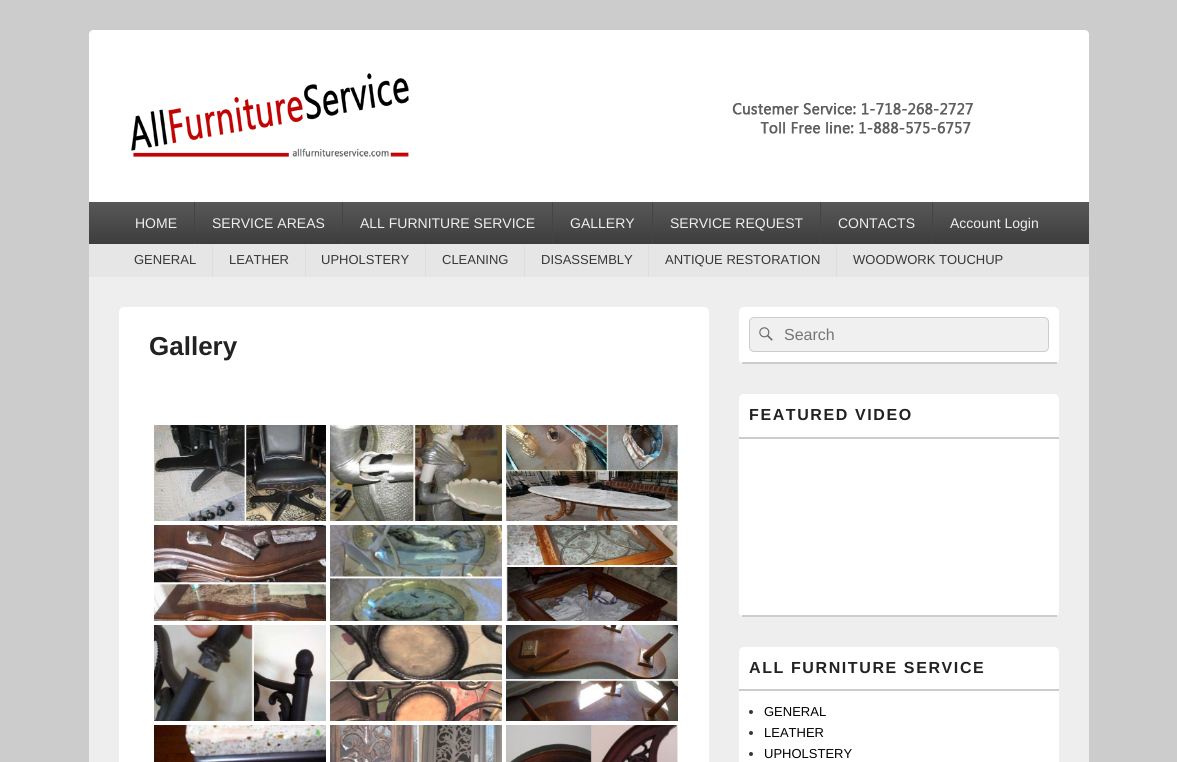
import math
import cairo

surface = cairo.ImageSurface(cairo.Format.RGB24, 1177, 762)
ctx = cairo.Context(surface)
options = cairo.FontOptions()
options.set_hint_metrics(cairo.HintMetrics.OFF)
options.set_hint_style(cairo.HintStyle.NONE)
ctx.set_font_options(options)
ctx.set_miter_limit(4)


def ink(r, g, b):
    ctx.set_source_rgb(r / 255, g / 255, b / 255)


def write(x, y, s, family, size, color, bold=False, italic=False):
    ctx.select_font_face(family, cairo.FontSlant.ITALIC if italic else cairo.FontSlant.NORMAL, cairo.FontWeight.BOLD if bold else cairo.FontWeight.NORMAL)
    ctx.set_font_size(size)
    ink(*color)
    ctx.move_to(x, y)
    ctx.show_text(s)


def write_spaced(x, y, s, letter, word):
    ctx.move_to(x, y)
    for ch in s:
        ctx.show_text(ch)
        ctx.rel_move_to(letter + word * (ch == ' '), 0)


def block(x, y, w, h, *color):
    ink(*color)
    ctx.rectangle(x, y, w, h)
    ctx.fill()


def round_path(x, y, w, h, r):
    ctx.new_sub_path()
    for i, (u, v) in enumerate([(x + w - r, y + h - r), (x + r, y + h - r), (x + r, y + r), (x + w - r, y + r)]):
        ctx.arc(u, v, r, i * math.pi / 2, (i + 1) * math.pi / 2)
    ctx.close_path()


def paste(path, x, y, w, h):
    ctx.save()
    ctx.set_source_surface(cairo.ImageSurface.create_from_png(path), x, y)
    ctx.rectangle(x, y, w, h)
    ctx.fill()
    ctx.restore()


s1 = dict(family="Liberation Sans", size=14, color=(238, 238, 238))
s2 = dict(family="Liberation Sans", size=13, color=(55, 55, 55))
s3 = dict(family="Liberation Sans", size=26, color=(34, 34, 34), bold=True)
s4 = dict(family="Liberation Sans", size=16, color=(117, 117, 117))
s5 = dict(family="Liberation Sans", size=13, color=(2, 0, 0))

ink(204, 204, 204)
ctx.paint()
ink(238, 238, 238)
round_path(89, 30, 1000, 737, 5)
ctx.fill()
ink(255, 255, 255)
ctx.new_path()
ctx.move_to(94, 30)
ctx.line_to(1084, 30)
ctx.curve_to(1087, 30, 1089, 32, 1089, 35)
ctx.line_to(1089, 277)
ctx.line_to(89, 277)
ctx.line_to(89, 35)
ctx.curve_to(89, 32, 91, 30, 94, 30)
ctx.close_path()
ctx.fill()
paste("pic1.png", 131, 73, 842, 84)
gradient = cairo.LinearGradient(589, 202, 589, 244)
gradient.add_color_stop_rgba(0, 0.345, 0.345, 0.345, 1)
gradient.add_color_stop_rgba(1, 0.239, 0.239, 0.239, 1)
ctx.set_source(gradient)
ctx.rectangle(89, 202, 1000, 42)
ctx.fill()
write(135, 228, "HOME", **s1)
block(194, 202, 1, 42, 68, 68, 68)
write(212, 228, "SERVICE AREAS", **s1)
block(342, 202, 1, 42, 68, 68, 68)
write(360, 228, "ALL FURNITURE SERVICE", **s1)
block(552, 202, 1, 42, 68, 68, 68)
write(570, 228, "GALLERY", **s1)
block(652, 202, 1, 42, 68, 68, 68)
write(670, 228, "SERVICE REQUEST", **s1)
block(820, 202, 1, 42, 68, 68, 68)
write(838, 228, "CONTACTS", **s1)
block(932, 202, 1, 42, 68, 68, 68)
write(950, 228, "Account Login", **s1)
block(89, 244, 1000, 33, 230, 230, 230)
write(134, 264, "GENERAL", **s2)
block(212, 244, 1, 33, 222, 222, 222)
write(229, 264, "LEATHER", **s2)
block(305, 244, 1, 33, 222, 222, 222)
write(321, 264, "UPHOLSTERY", **s2)
block(425, 244, 1, 33, 222, 222, 222)
write(442, 264, "CLEANING", **s2)
block(524, 244, 1, 33, 222, 222, 222)
write(541, 264, "DISASSEMBLY", **s2)
block(648, 244, 1, 33, 222, 222, 222)
write(665, 264, "ANTIQUE RESTORATION", **s2)
block(836, 244, 1, 33, 222, 222, 222)
write(853, 264, "WOODWORK TOUCHUP", **s2)
ink(255, 255, 255)
round_path(119, 307, 590, 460, 5)
ctx.fill()
write(149, 355, "Gallery", **s3)
paste("pic2.png", 154, 425, 172, 96)
paste("pic3.png", 330, 425, 172, 96)
paste("pic4.png", 506, 425, 172, 96)
paste("pic5.png", 154, 525, 172, 96)
paste("pic6.png", 330, 525, 172, 96)
paste("pic7.png", 506, 525, 172, 96)
paste("pic8.png", 154, 625, 172, 96)
paste("pic9.png", 330, 625, 172, 96)
paste("pic10.png", 506, 625, 172, 96)
paste("pic11.png", 154, 725, 172, 37)
paste("pic12.png", 330, 725, 172, 37)
paste("pic13.png", 506, 725, 172, 37)
ink(255, 255, 255)
round_path(739, 307, 320, 57, 5)
ctx.fill()
block(742, 362, 315, 2, 204, 204, 204)
ink(240, 240, 240)
round_path(749.5, 317.5, 299, 34, 4.5)
ctx.fill_preserve()
ink(204, 204, 204)
ctx.set_line_width(1)
ctx.stroke()
paste("pic14.png", 759, 327, 14, 14)
write(784, 340, "Search", **s4)
ink(255, 255, 255)
round_path(739, 394, 320, 223, 5)
ctx.fill()
block(742, 615, 315, 2, 204, 204, 204)
block(739, 437, 320, 2, 204, 204, 204)
ctx.select_font_face("Liberation Sans", cairo.FontSlant.NORMAL, cairo.FontWeight.BOLD)
ink(34, 34, 34)
write_spaced(749, 420, "FEATURED VIDEO", 1.6, 0)
ink(255, 255, 255)
round_path(739, 647, 320, 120, 5)
ctx.fill()
block(739, 689, 320, 2, 204, 204, 204)
ink(34, 34, 34)
write_spaced(749, 673, "ALL FURNITURE SERVICE", 1.6, 0)
ink(55, 55, 55)
ctx.new_path()
ctx.arc(751, 712, 2, 0, 2 * math.pi)
ctx.fill()
write(764, 716, "GENERAL", **s5)
ink(55, 55, 55)
ctx.new_path()
ctx.arc(751, 733, 2, 0, 2 * math.pi)
ctx.fill()
write(764, 737, "LEATHER", **s5)
ink(55, 55, 55)
ctx.new_path()
ctx.arc(751, 754, 2, 0, 2 * math.pi)
ctx.fill()
write(764, 758, "UPHOLSTERY", **s5)
surface.write_to_png("screenshot.png")
